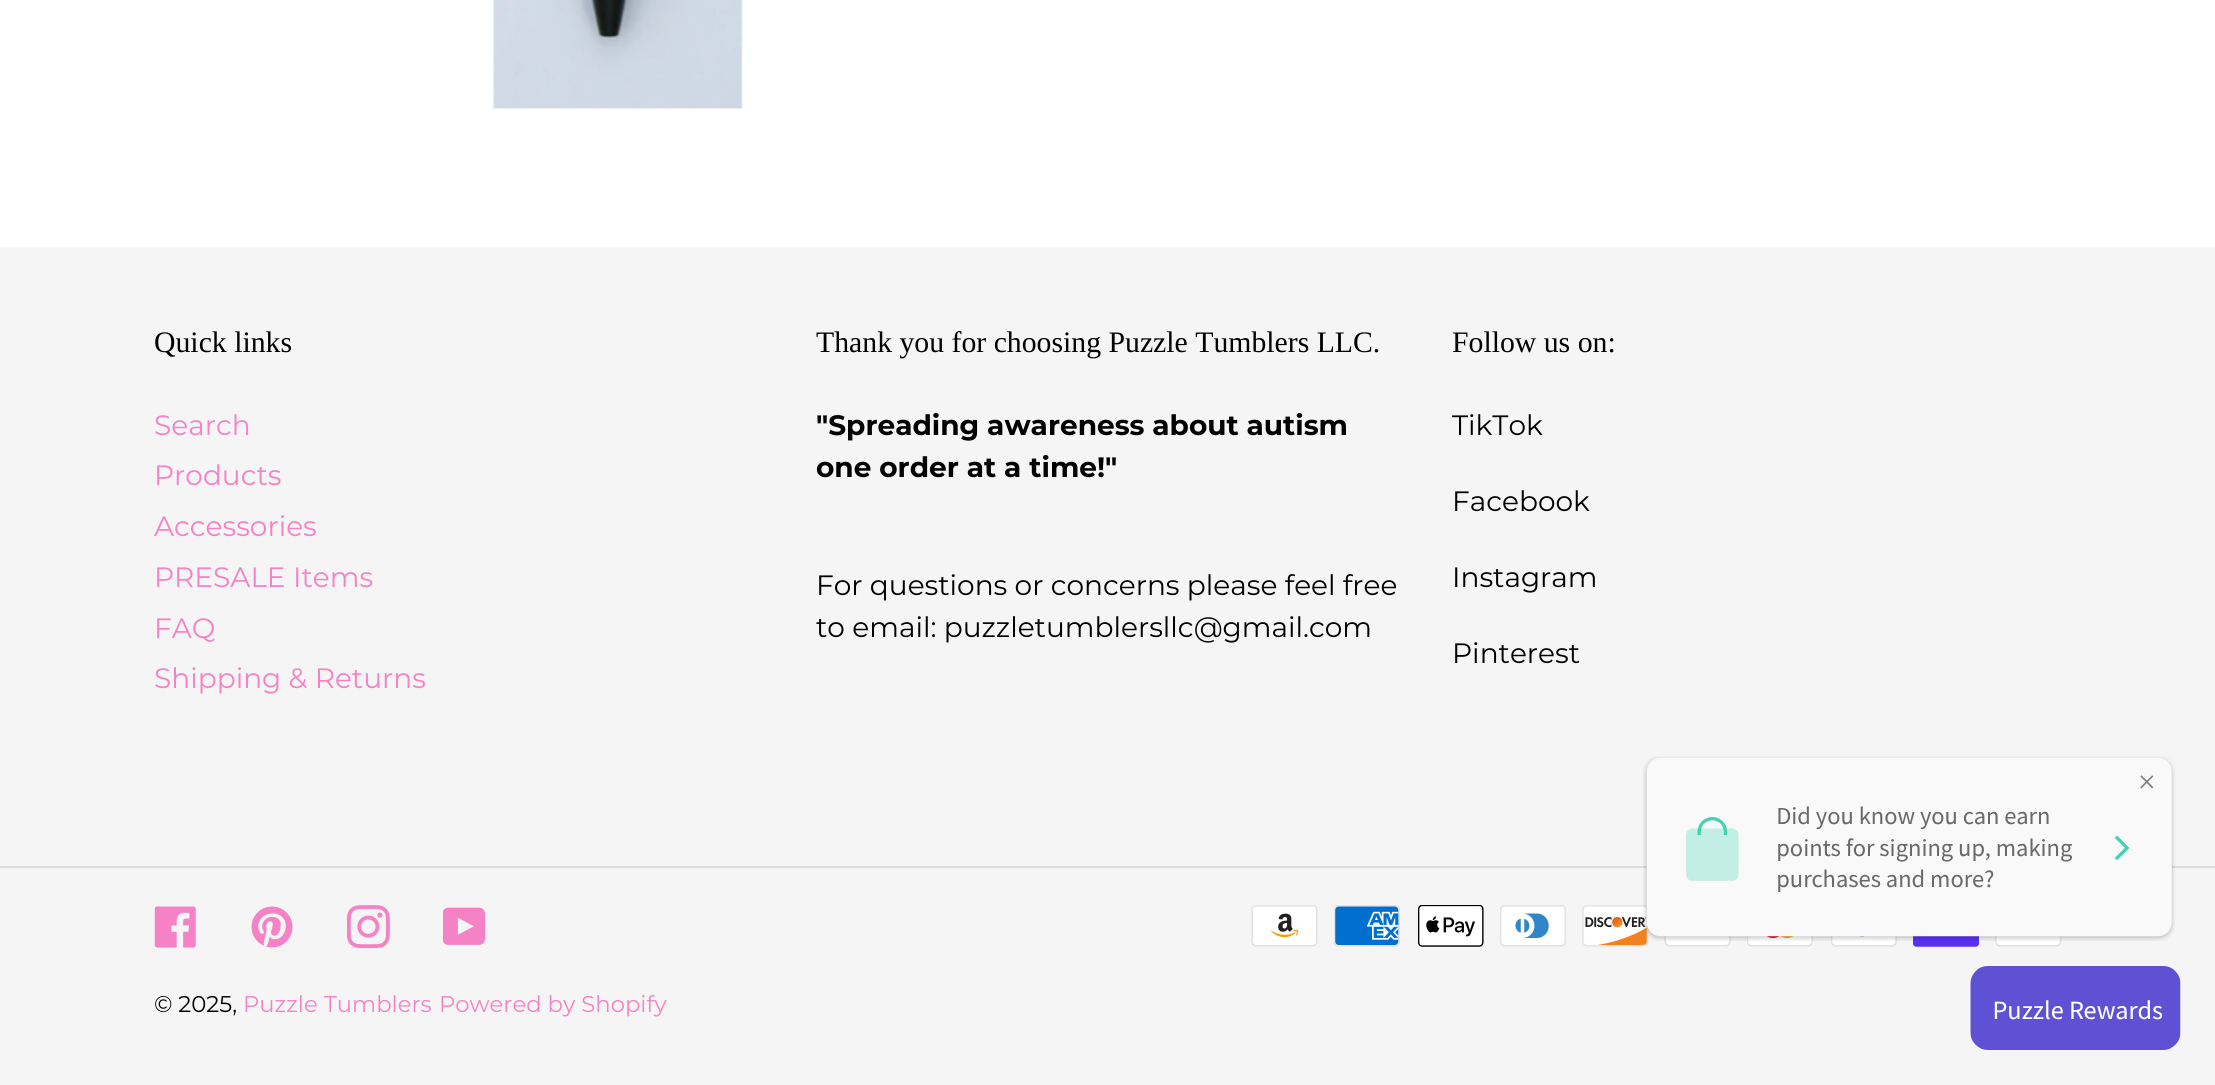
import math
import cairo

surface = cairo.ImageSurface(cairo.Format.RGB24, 2215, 1085)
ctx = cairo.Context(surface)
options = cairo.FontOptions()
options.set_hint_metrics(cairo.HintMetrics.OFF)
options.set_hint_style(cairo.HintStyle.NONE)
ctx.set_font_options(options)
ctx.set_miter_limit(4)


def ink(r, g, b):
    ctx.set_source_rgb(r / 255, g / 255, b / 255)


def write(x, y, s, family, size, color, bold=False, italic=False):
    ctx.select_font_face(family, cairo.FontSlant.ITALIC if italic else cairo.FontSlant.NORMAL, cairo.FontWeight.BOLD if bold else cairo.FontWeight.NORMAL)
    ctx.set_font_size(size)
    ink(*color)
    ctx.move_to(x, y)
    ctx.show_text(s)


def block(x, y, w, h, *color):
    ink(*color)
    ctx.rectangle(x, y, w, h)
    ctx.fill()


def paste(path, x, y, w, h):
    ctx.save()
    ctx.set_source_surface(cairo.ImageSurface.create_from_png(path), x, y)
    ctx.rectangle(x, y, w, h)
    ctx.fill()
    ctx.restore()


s1 = dict(family="Liberation Serif", size=29.75, color=(0, 0, 0))
s2 = dict(family="Montserrat", size=28, color=(245, 130, 197))
s3 = dict(family="Montserrat", size=28, color=(0, 0, 0), bold=True)
s4 = dict(family="Montserrat", size=28, color=(0, 0, 0))
s5 = dict(family="Montserrat", size=22.75, color=(0, 0, 0))
s6 = dict(family="Montserrat", size=22.75, color=(245, 130, 197))

ink(255, 255, 255)
ctx.paint()
paste("pic1.png", 493, 0, 250, 109)
block(0, 247, 2215, 838, 245, 245, 245)
write(154, 352, "Quick links", **s1)
write(154, 435, "Search", **s2)
write(154, 485, "Products", **s2)
write(154, 536, "Accessories", **s2)
write(154, 587, "PRESALE Items", **s2)
write(154, 638, "FAQ", **s2)
write(154, 688, "Shipping & Returns", **s2)
write(816, 352, "Thank you for choosing Puzzle Tumblers LLC.", **s1)
write(816, 435, "\"Spreading awareness about autism", **s3)
write(816, 477, "one order at a time!\"", **s3)
write(816, 595, "For questions or concerns please feel free", **s4)
write(816, 637, "to email: puzzletumblersllc@gmail.com", **s4)
write(1452, 352, "Follow us on:", **s1)
write(1452, 435, "TikTok", **s4)
write(1452, 511, "Facebook", **s4)
write(1452, 587, "Instagram", **s4)
write(1452, 663, "Pinterest", **s4)
block(0, 866, 2215, 2, 220, 220, 220)
paste("pic2.png", 154, 906, 42, 42)
paste("pic3.png", 251, 906, 42, 42)
paste("pic4.png", 347, 905, 43, 44)
paste("pic5.png", 443, 907, 43, 38)
paste("pic6.png", 1251, 905, 67, 42)
paste("pic7.png", 1334, 905, 66, 42)
paste("pic8.png", 1418, 905, 66, 42)
paste("pic9.png", 1500, 905, 66, 42)
paste("pic10.png", 1582, 905, 67, 42)
paste("pic11.png", 1664, 936, 67, 11)
paste("pic12.png", 1747, 936, 66, 11)
paste("pic13.png", 1831, 936, 66, 11)
paste("pic14.png", 1913, 936, 66, 11)
paste("pic15.png", 1995, 936, 67, 11)
write(154, 1012, "© 2025,", **s5)
write(243, 1012, "Puzzle Tumblers", **s6)
write(439, 1012, "Powered by Shopify", **s6)
paste("pic16.png", 1643, 756, 532, 185)
paste("pic17.png", 1970, 966, 211, 84)
surface.write_to_png("screenshot.png")
